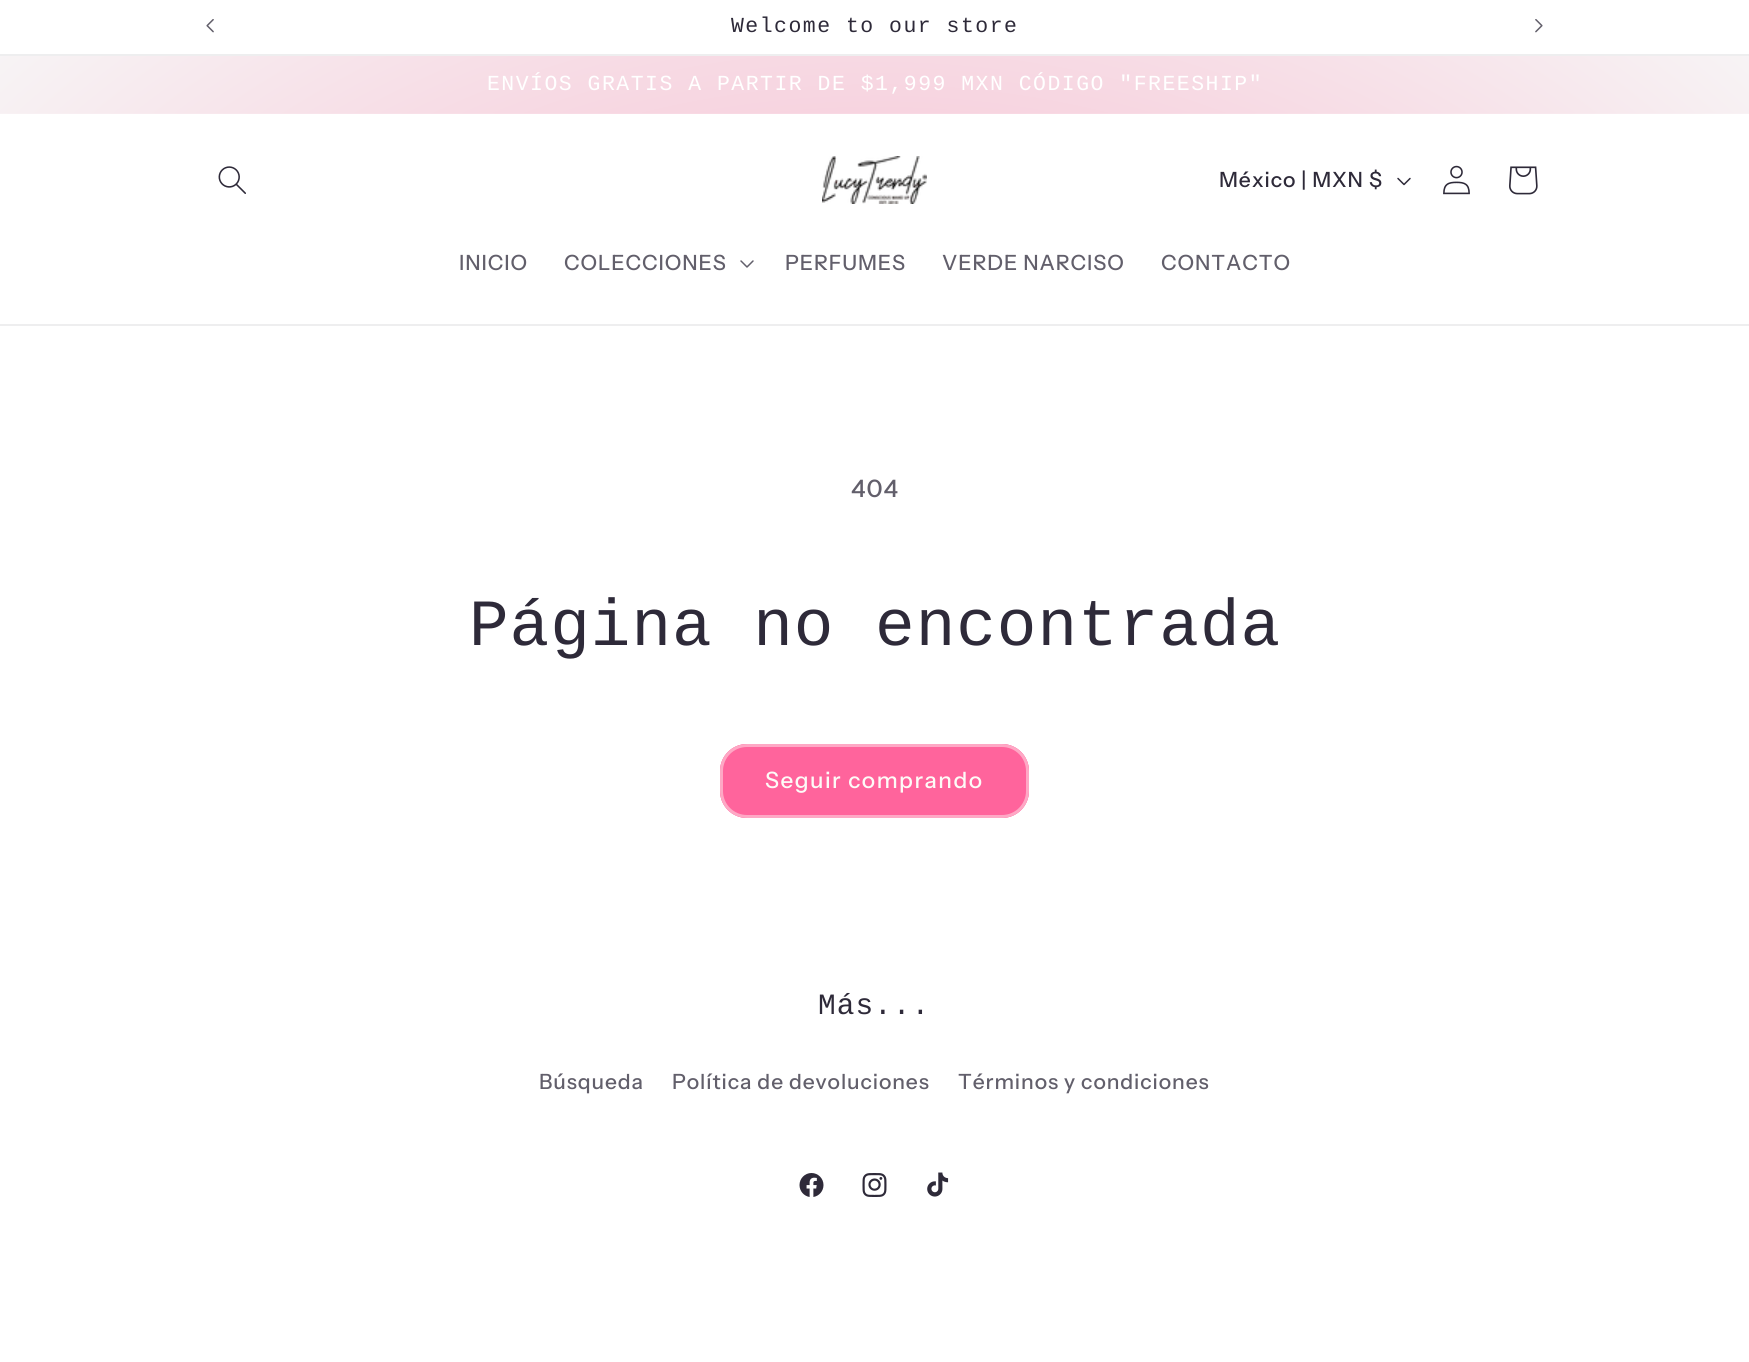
import math
import cairo

surface = cairo.ImageSurface(cairo.Format.RGB24, 1749, 1362)
ctx = cairo.Context(surface)
options = cairo.FontOptions()
options.set_hint_metrics(cairo.HintMetrics.OFF)
options.set_hint_style(cairo.HintStyle.NONE)
ctx.set_font_options(options)
ctx.set_miter_limit(4)


def ink(r, g, b):
    ctx.set_source_rgb(r / 255, g / 255, b / 255)


def write_spaced(x, y, s, letter, word):
    ctx.move_to(x, y)
    for ch in s:
        ctx.show_text(ch)
        ctx.rel_move_to(letter + word * (ch == ' '), 0)


def block(x, y, w, h, *color):
    ink(*color)
    ctx.rectangle(x, y, w, h)
    ctx.fill()


def round_path(x, y, w, h, r):
    ctx.new_sub_path()
    for i, (u, v) in enumerate([(x + w - r, y + h - r), (x + r, y + h - r), (x + r, y + r), (x + w - r, y + r)]):
        ctx.arc(u, v, r, i * math.pi / 2, (i + 1) * math.pi / 2)
    ctx.close_path()


def paste(path, x, y, w, h):
    ctx.save()
    ctx.set_source_surface(cairo.ImageSurface.create_from_png(path), x, y)
    ctx.rectangle(x, y, w, h)
    ctx.fill()
    ctx.restore()


ink(255, 255, 255)
ctx.paint()
block(0, 54, 1749, 2, 238, 238, 239)
paste("pic1.png", 206, 19, 8, 14)
ctx.select_font_face("Liberation Mono")
ctx.set_font_size(21.45)
ink(46, 42, 57)
write_spaced(731, 32, "Welcome to our store", 1.5, 0)
paste("pic2.png", 1535, 19, 8, 14)
gradient = cairo.RadialGradient(0, 0, 0, 0, 0, 1)
gradient.set_matrix(cairo.Matrix(1 / 1237, 0, 0, 1 / 963, -1 * 875 / 1237, -1 * 681 / 963))
gradient.add_color_stop_rgba(0.03, 0.969, 0.643, 0.753, 1)
gradient.add_color_stop_rgba(1, 0.969, 0.969, 0.969, 1)
ctx.set_source(gradient)
ctx.rectangle(0, 56, 1749, 57)
ctx.fill()
gradient = cairo.RadialGradient(0, 0, 0, 0, 0, 1)
gradient.set_matrix(cairo.Matrix(1 / 1237, 0, 0, 1 / 963, -1 * 875 / 1237, -1 * 681 / 963))
gradient.add_color_stop_rgba(0.03, 0.973, 0.671, 0.773, 1)
gradient.add_color_stop_rgba(1, 0.973, 0.973, 0.973, 1)
ctx.set_source(gradient)
ctx.rectangle(0, 113, 1749, 1)
ctx.fill()
ink(255, 255, 255)
write_spaced(487, 90, "ENVÍOS GRATIS A PARTIR DE $1,999 MXN CÓDIGO \"FREESHIP\"", 1.5, 0)
block(0, 324, 1749, 2, 238, 238, 239)
paste("pic3.png", 218, 166, 28, 28)
paste("pic4.png", 822, 156, 105, 48)
ctx.select_font_face("Instrument Sans Medium")
ctx.set_font_size(21)
ink(46, 42, 57)
write_spaced(1219, 187, "México | MXN $", 0.9, 0)
paste("pic5.png", 1397, 177, 14, 9)
paste("pic6.png", 1443, 165, 27, 30)
paste("pic7.png", 1509, 166, 29, 29)
ink(98, 95, 107)
write_spaced(459, 270, "INICIO", 0.9, 0)
write_spaced(564, 270, "COLECCIONES", 0.9, 0)
paste("pic8.png", 740, 260, 14, 8)
write_spaced(785, 270, "PERFUMES", 0.9, 0)
write_spaced(942, 270, "VERDE NARCISO", 0.9, 0)
write_spaced(1161, 270, "CONTACTO", 0.9, 0)
ctx.set_font_size(24)
write_spaced(851, 497, "404", 0.9, 0)
ctx.select_font_face("Liberation Mono")
ctx.set_font_size(66)
ink(46, 42, 57)
write_spaced(469, 645, "Página no encontrada", 1, 0)
ink(255, 100, 156)
round_path(720, 744, 309, 74, 27)
ctx.fill()
round_path(721.5, 745.5, 306, 71, 25.5)
ctx.set_line_width(3)
ctx.stroke()
round_path(721.5, 745.5, 306, 71, 25.5)
ctx.set_source_rgba(0.992, 0.984, 0.969, 0.45)
ctx.stroke()
ctx.select_font_face("Instrument Sans Medium")
ctx.set_font_size(22.5)
ink(253, 251, 247)
write_spaced(765, 788, "Seguir comprando", 1.5, 0)
ctx.select_font_face("Liberation Mono")
ctx.set_font_size(29.5)
ink(46, 42, 57)
write_spaced(818, 1014, "Más...", 1, 0)
ctx.select_font_face("Instrument Sans Medium")
ctx.set_font_size(21)
ink(98, 95, 107)
write_spaced(539, 1089, "Búsqueda", 0.9, 0)
write_spaced(672, 1089, "Política de devoluciones", 0.9, 0)
write_spaced(958, 1089, "Términos y condiciones", 0.9, 0)
paste("pic9.png", 799, 1173, 25, 24)
paste("pic10.png", 862, 1173, 25, 24)
paste("pic11.png", 927, 1172, 22, 25)
surface.write_to_png("screenshot.png")
